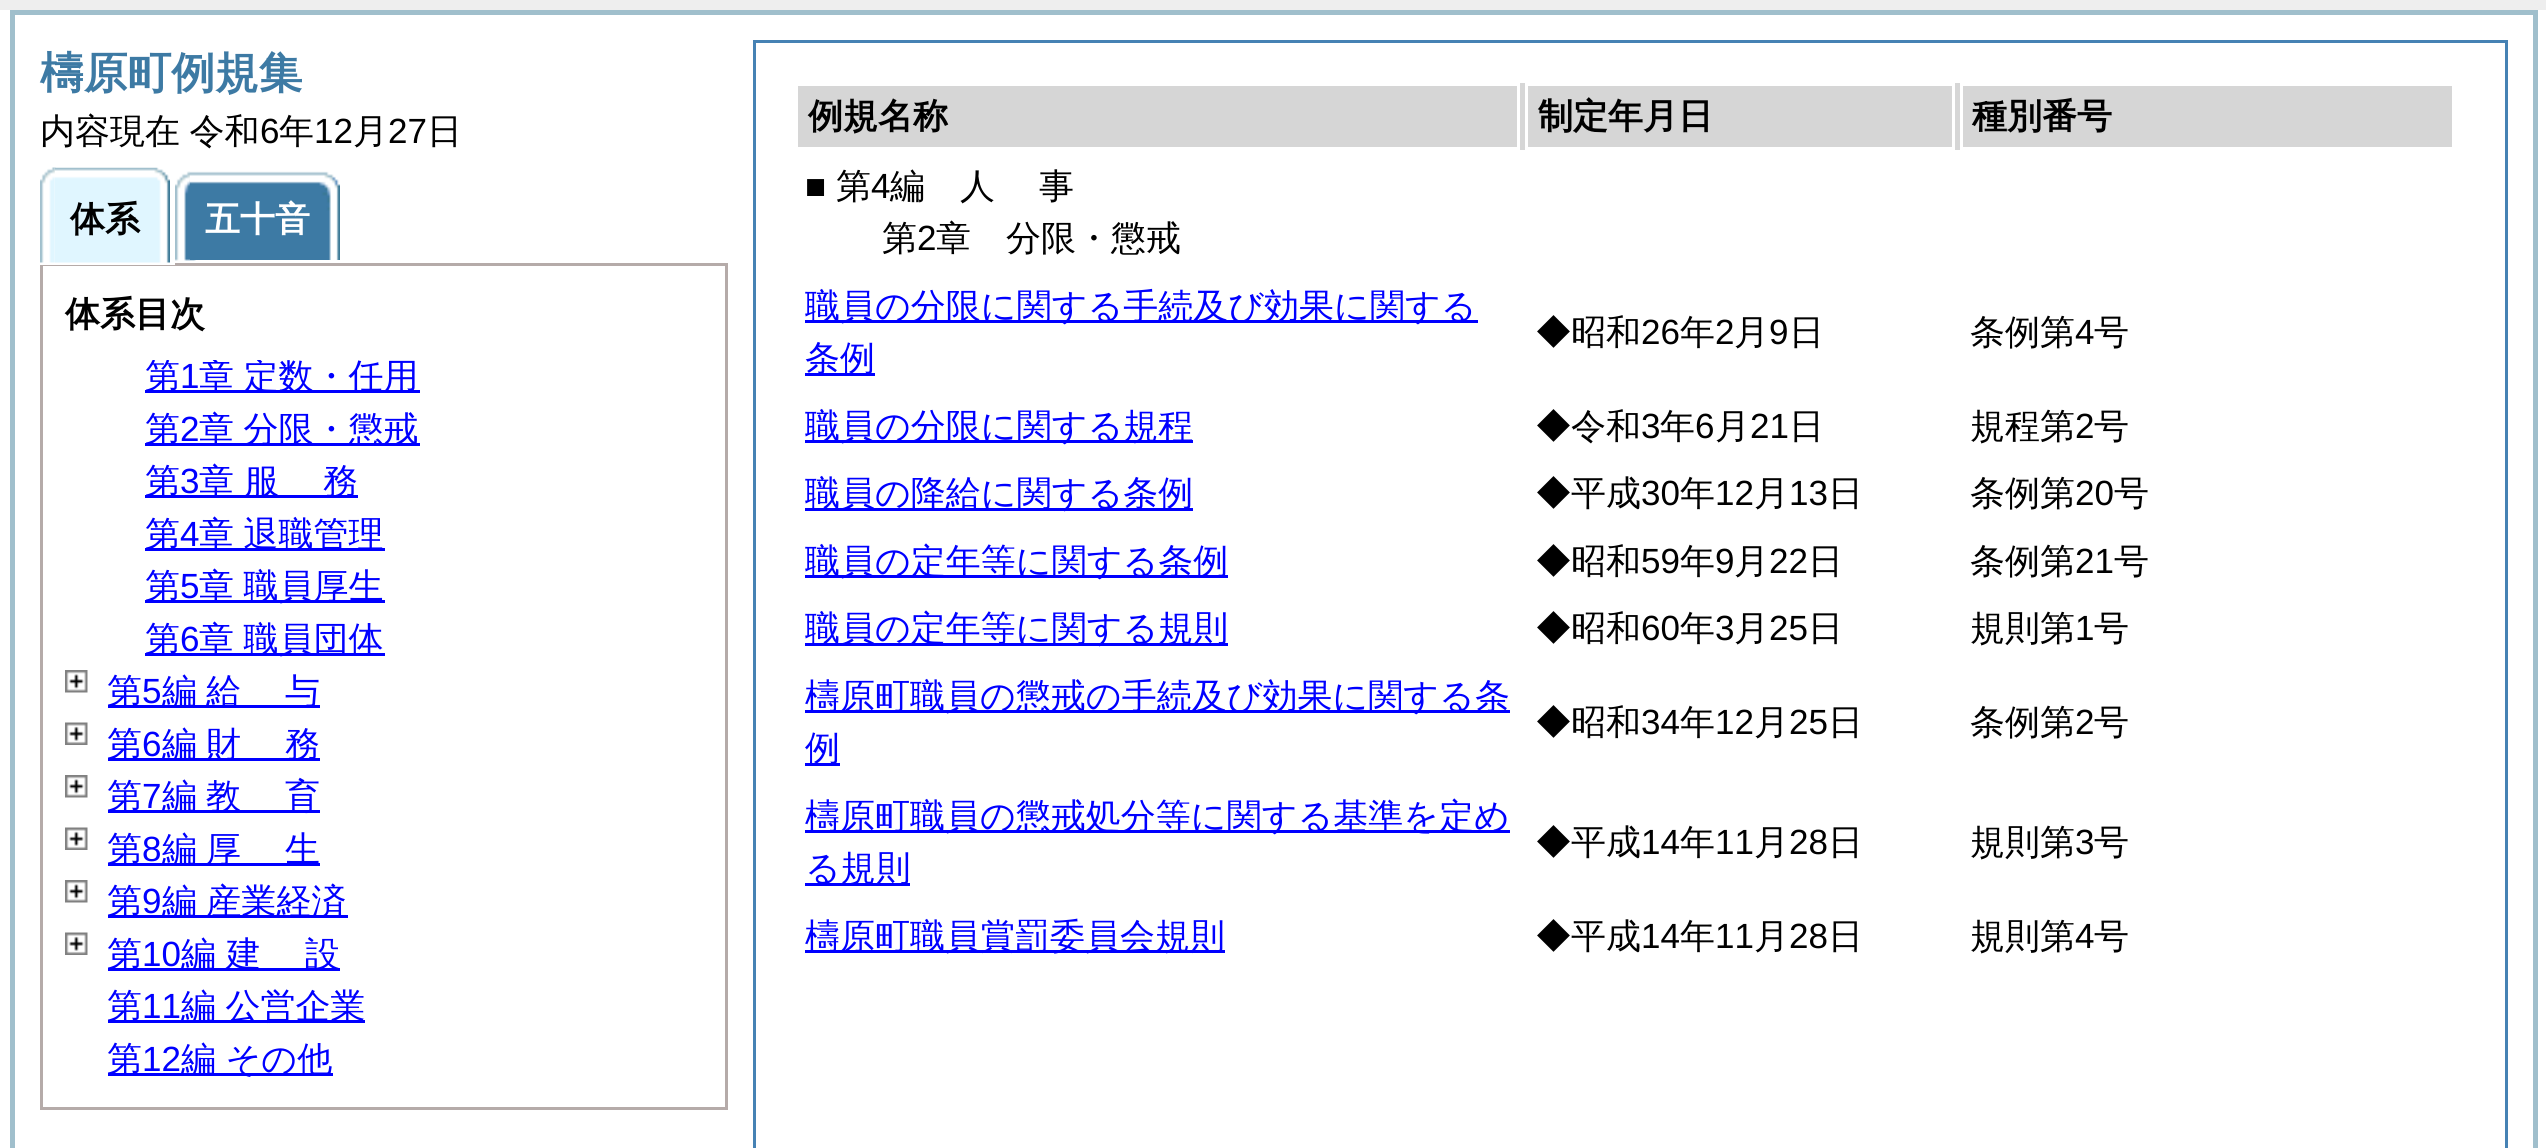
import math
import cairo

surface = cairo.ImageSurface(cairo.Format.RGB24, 2546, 1148)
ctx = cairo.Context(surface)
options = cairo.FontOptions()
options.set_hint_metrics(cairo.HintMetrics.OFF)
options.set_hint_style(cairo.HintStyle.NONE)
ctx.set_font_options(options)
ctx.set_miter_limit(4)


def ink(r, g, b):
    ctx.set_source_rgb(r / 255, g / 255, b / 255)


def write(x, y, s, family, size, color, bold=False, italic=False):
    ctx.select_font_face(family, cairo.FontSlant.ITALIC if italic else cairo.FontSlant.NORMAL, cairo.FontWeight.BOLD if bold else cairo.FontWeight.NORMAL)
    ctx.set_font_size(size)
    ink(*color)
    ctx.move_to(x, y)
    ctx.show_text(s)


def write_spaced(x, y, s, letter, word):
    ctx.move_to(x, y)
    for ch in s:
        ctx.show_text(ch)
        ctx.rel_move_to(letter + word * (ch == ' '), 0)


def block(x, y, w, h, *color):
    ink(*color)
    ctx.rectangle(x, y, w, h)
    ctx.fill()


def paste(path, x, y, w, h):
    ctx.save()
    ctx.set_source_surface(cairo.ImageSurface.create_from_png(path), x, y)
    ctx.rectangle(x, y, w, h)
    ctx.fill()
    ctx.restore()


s1 = dict(family="WenQuanYi Zen Hei", size=43.75, color=(61, 122, 164), bold=True)
s2 = dict(family="Liberation Sans", size=35, color=(0, 0, 0))
s3 = dict(family="WenQuanYi Zen Hei Medium", size=35, color=(0, 0, 0))
s4 = dict(family="WenQuanYi Zen Hei", size=35, color=(0, 0, 0), bold=True)
s5 = dict(family="WenQuanYi Zen Hei", size=35, color=(255, 255, 255), bold=True)
s6 = dict(family="WenQuanYi Zen Hei Medium", size=35, color=(0, 0, 255))
s7 = dict(family="Liberation Sans", size=35, color=(0, 0, 255))

ink(255, 255, 255)
ctx.paint()
paste("pic1.png", 0, 0, 2546, 10)
ctx.rectangle(12.5, 12.5, 2523, 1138)
ink(160, 191, 204)
ctx.set_line_width(5)
ctx.stroke()
write(40, 88, "檮原町例規集", **s1)
ctx.select_font_face("WenQuanYi Zen Hei Medium")
ctx.set_font_size(35)
ink(0, 0, 0)
write_spaced(40, 143, "内容現在 令和", 0, -1)
write(260, 143, "6", **s2)
write(279, 143, "年", **s3)
write(314, 143, "12", **s2)
write(353, 143, "月", **s3)
write(388, 143, "27", **s2)
write(427, 143, "日", **s3)
ctx.rectangle(41.5, 264.5, 685, 844)
ink(181, 171, 169)
ctx.set_line_width(3)
ctx.stroke()
block(40, 263, 135, 2, 255, 255, 255)
paste("pic2.png", 40, 167, 16, 96)
paste("pic3.png", 55, 167, 115, 96)
write(70, 231, "体系", **s4)
paste("pic4.png", 175, 168, 165, 93)
paste("pic5.png", 190, 168, 150, 92)
write(205, 231, "五十音", **s5)
write(65, 326, "体系目次", **s4)
block(145, 390, 275, 3, 0, 0, 255)
ctx.save()
ctx.rectangle(65, 360, 638, 725)
ctx.clip()
write(145, 388, "第", **s6)
ctx.restore()
write(180, 388, "1", **s7)
ctx.save()
ctx.rectangle(65, 360, 638, 725)
ctx.clip()
ctx.select_font_face("WenQuanYi Zen Hei Medium")
write_spaced(199, 388, "章 定数・任用", 0, -1)
ctx.restore()
block(145, 443, 275, 3, 0, 0, 255)
write(145, 441, "第", **s6)
write(180, 441, "2", **s7)
ctx.select_font_face("WenQuanYi Zen Hei Medium")
write_spaced(199, 441, "章 分限・懲戒", 0, -1)
block(145, 495, 213, 3, 0, 0, 255)
write(145, 493, "第", **s6)
write(180, 493, "3", **s7)
write(199, 493, "章", **s6)
write_spaced(244, 493, "服", 44, 0)
write(323, 493, "務", **s6)
block(145, 548, 240, 3, 0, 0, 255)
write(145, 546, "第", **s6)
write(180, 546, "4", **s7)
ctx.select_font_face("WenQuanYi Zen Hei Medium")
write_spaced(199, 546, "章 退職管理", 0, -1)
block(145, 600, 240, 3, 0, 0, 255)
write(145, 598, "第", **s6)
write(180, 598, "5", **s7)
ctx.select_font_face("WenQuanYi Zen Hei Medium")
write_spaced(199, 598, "章 職員厚生", 0, -1)
block(145, 653, 240, 3, 0, 0, 255)
write(145, 651, "第", **s6)
write(180, 651, "6", **s7)
ctx.select_font_face("WenQuanYi Zen Hei Medium")
write_spaced(199, 651, "章 職員団体", 0, -1)
paste("pic6.png", 65, 670, 23, 23)
block(108, 705, 212, 3, 0, 0, 255)
write(107, 703, "第", **s6)
write(142, 703, "5", **s7)
write(162, 703, "編", **s6)
write_spaced(206, 703, "給", 44, 0)
write(285, 703, "与", **s6)
paste("pic7.png", 65, 722, 23, 23)
block(108, 758, 212, 3, 0, 0, 255)
write(107, 756, "第", **s6)
write(142, 756, "6", **s7)
write(162, 756, "編", **s6)
write_spaced(206, 756, "財", 44, 0)
write(285, 756, "務", **s6)
paste("pic6.png", 65, 775, 23, 23)
block(108, 810, 212, 3, 0, 0, 255)
write(107, 808, "第", **s6)
write(142, 808, "7", **s7)
write(162, 808, "編", **s6)
write_spaced(206, 808, "教", 44, 0)
write(285, 808, "育", **s6)
paste("pic8.png", 65, 827, 23, 23)
block(108, 863, 212, 3, 0, 0, 255)
write(107, 861, "第", **s6)
write(142, 861, "8", **s7)
write(162, 861, "編", **s6)
write_spaced(206, 861, "厚", 44, 0)
write(285, 861, "生", **s6)
paste("pic6.png", 65, 880, 23, 23)
block(108, 915, 240, 3, 0, 0, 255)
write(107, 913, "第", **s6)
write(142, 913, "9", **s7)
ctx.select_font_face("WenQuanYi Zen Hei Medium")
write_spaced(162, 913, "編 産業経済", 0, -1)
paste("pic7.png", 65, 932, 23, 23)
block(108, 968, 232, 3, 0, 0, 255)
write(107, 966, "第", **s6)
write(142, 966, "10", **s7)
write(181, 966, "編", **s6)
write_spaced(226, 966, "建", 44, 0)
write(305, 966, "設", **s6)
block(108, 1020, 257, 3, 0, 0, 255)
write(107, 1018, "第", **s6)
write(142, 1018, "11", **s7)
ctx.select_font_face("WenQuanYi Zen Hei Medium")
write_spaced(181, 1018, "編 公営企業", 0, -1)
block(108, 1073, 225, 3, 0, 0, 255)
write(107, 1071, "第", **s6)
write(142, 1071, "12", **s7)
ctx.select_font_face("WenQuanYi Zen Hei Medium")
write_spaced(181, 1071, "編 その他", 0, -1)
ctx.rectangle(754.5, 41.5, 1752, 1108)
ink(70, 130, 180)
ctx.stroke()
block(798, 83, 1654, 67, 214, 214, 214)
ctx.rectangle(796.5, 84.5, 722, 64)
ink(255, 255, 255)
ctx.stroke()
write(808, 128, "例規名称", **s4)
ctx.rectangle(1526.5, 84.5, 427, 64)
ink(255, 255, 255)
ctx.stroke()
write(1538, 128, "制定年月日", **s4)
ctx.rectangle(1961.5, 84.5, 492, 64)
ink(255, 255, 255)
ctx.stroke()
write(1972, 128, "種別番号", **s4)
write(805, 198, "■", **s2)
write(836, 198, "第", **s3)
write(871, 198, "4", **s2)
write(890, 198, "編", **s3)
write_spaced(960, 198, "人", 44, 0)
write(1039, 198, "事", **s3)
write(882, 250, "第", **s3)
write(917, 250, "2", **s2)
write(936, 250, "章　分限・懲戒", **s3)
block(805, 320, 673, 3, 0, 0, 255)
write(805, 318, "職員の分限に関する手続及び効果に関する", **s6)
block(805, 373, 70, 3, 0, 0, 255)
write(805, 370, "条例", **s6)
write(1536, 344, "◆昭和", **s3)
write(1641, 344, "26", **s2)
write(1680, 344, "年", **s3)
write(1715, 344, "2", **s2)
write(1734, 344, "月", **s3)
write(1769, 344, "9", **s2)
write(1789, 344, "日", **s3)
write(1970, 344, "条例第", **s3)
write(2075, 344, "4", **s2)
write(2094, 344, "号", **s3)
block(805, 440, 388, 3, 0, 0, 255)
write(805, 438, "職員の分限に関する規程", **s6)
write(1536, 438, "◆令和", **s3)
write(1641, 438, "3", **s2)
write(1660, 438, "年", **s3)
write(1695, 438, "6", **s2)
write(1715, 438, "月", **s3)
write(1750, 438, "21", **s2)
write(1789, 438, "日", **s3)
write(1970, 438, "規程第", **s3)
write(2075, 438, "2", **s2)
write(2094, 438, "号", **s3)
block(805, 508, 388, 3, 0, 0, 255)
write(805, 505, "職員の降給に関する条例", **s6)
write(1536, 505, "◆平成", **s3)
write(1641, 505, "30", **s2)
write(1680, 505, "年", **s3)
write(1715, 505, "12", **s2)
write(1754, 505, "月", **s3)
write(1789, 505, "13", **s2)
write(1828, 505, "日", **s3)
write(1970, 505, "条例第", **s3)
write(2075, 505, "20", **s2)
write(2114, 505, "号", **s3)
block(805, 575, 423, 3, 0, 0, 255)
write(805, 573, "職員の定年等に関する条例", **s6)
write(1536, 573, "◆昭和", **s3)
write(1641, 573, "59", **s2)
write(1680, 573, "年", **s3)
write(1715, 573, "9", **s2)
write(1734, 573, "月", **s3)
write(1769, 573, "22", **s2)
write(1808, 573, "日", **s3)
write(1970, 573, "条例第", **s3)
write(2075, 573, "21", **s2)
write(2114, 573, "号", **s3)
block(805, 643, 423, 3, 0, 0, 255)
write(805, 640, "職員の定年等に関する規則", **s6)
write(1536, 640, "◆昭和", **s3)
write(1641, 640, "60", **s2)
write(1680, 640, "年", **s3)
write(1715, 640, "3", **s2)
write(1734, 640, "月", **s3)
write(1769, 640, "25", **s2)
write(1808, 640, "日", **s3)
write(1970, 640, "規則第", **s3)
write(2075, 640, "1", **s2)
write(2094, 640, "号", **s3)
block(805, 710, 705, 3, 0, 0, 255)
write(805, 708, "檮原町職員の懲戒の手続及び効果に関する条", **s6)
block(805, 763, 35, 3, 0, 0, 255)
write(805, 760, "例", **s6)
write(1536, 734, "◆昭和", **s3)
write(1641, 734, "34", **s2)
write(1680, 734, "年", **s3)
write(1715, 734, "12", **s2)
write(1754, 734, "月", **s3)
write(1789, 734, "25", **s2)
write(1828, 734, "日", **s3)
write(1970, 734, "条例第", **s3)
write(2075, 734, "2", **s2)
write(2094, 734, "号", **s3)
block(805, 830, 705, 3, 0, 0, 255)
write(805, 828, "檮原町職員の懲戒処分等に関する基準を定め", **s6)
block(805, 883, 105, 3, 0, 0, 255)
write(805, 880, "る規則", **s6)
write(1536, 854, "◆平成", **s3)
write(1641, 854, "14", **s2)
write(1680, 854, "年", **s3)
write(1715, 854, "11", **s2)
write(1754, 854, "月", **s3)
write(1789, 854, "28", **s2)
write(1828, 854, "日", **s3)
write(1970, 854, "規則第", **s3)
write(2075, 854, "3", **s2)
write(2094, 854, "号", **s3)
block(805, 950, 420, 3, 0, 0, 255)
write(805, 948, "檮原町職員賞罰委員会規則", **s6)
write(1536, 948, "◆平成", **s3)
write(1641, 948, "14", **s2)
write(1680, 948, "年", **s3)
write(1715, 948, "11", **s2)
write(1754, 948, "月", **s3)
write(1789, 948, "28", **s2)
write(1828, 948, "日", **s3)
write(1970, 948, "規則第", **s3)
write(2075, 948, "4", **s2)
write(2094, 948, "号", **s3)
surface.write_to_png("screenshot.png")
